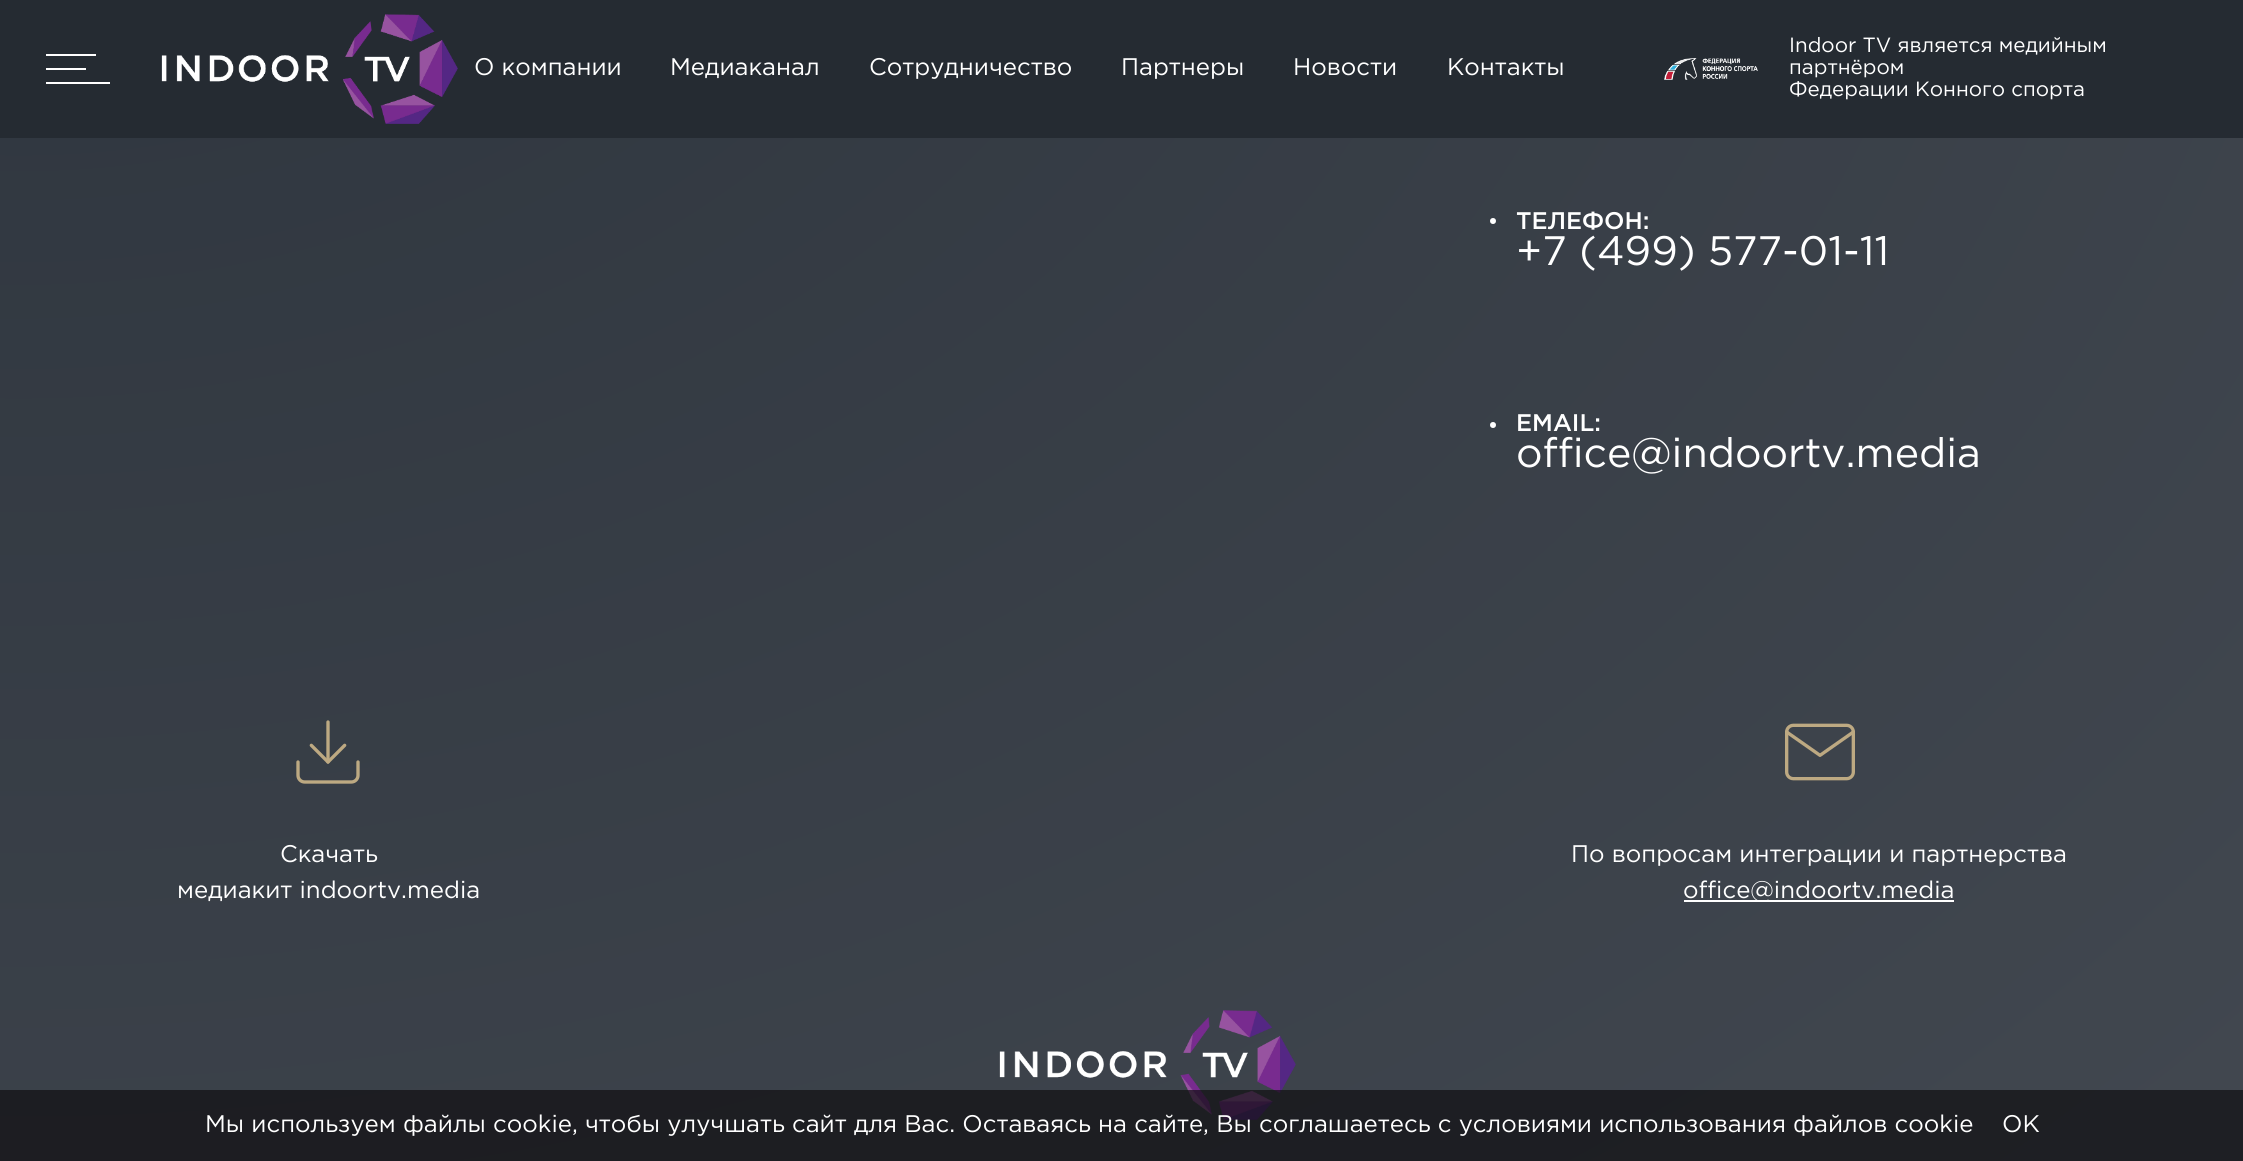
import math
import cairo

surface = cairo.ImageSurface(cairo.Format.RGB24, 2243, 1161)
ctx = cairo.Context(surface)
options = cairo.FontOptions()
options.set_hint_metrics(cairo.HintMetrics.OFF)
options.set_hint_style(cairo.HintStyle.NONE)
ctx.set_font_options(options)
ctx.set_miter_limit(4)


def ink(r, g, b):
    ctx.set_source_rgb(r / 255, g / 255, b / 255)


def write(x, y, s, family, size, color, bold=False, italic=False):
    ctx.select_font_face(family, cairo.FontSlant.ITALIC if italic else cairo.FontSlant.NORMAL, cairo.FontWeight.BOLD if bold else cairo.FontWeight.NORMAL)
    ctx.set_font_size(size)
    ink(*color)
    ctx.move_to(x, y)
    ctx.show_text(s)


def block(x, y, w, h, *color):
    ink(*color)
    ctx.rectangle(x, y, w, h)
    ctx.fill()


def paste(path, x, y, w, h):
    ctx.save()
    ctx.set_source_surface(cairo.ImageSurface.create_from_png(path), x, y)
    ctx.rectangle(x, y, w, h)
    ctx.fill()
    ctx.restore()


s1 = dict(family="Gotham", size=24, color=(255, 255, 255))
s2 = dict(family="Gotham", size=20.6, color=(255, 255, 255))
s3 = dict(family="Gotham Medium", size=24, color=(255, 255, 255))
s4 = dict(family="Gotham", size=41.1, color=(255, 255, 255))

ink(255, 255, 255)
ctx.paint()
gradient = cairo.RadialGradient(0, 0, 0, 0, 0, 1)
gradient.set_matrix(cairo.Matrix(1 / 3173, 0, 0, 1 / 2288, -1 * 0 / 3173, -1 * -350 / 2288))
gradient.add_color_stop_rgba(0, 0.176, 0.204, 0.239, 1)
gradient.add_color_stop_rgba(1, 0.259, 0.282, 0.314, 1)
ctx.set_source(gradient)
ctx.rectangle(0, 138, 2243, 1023)
ctx.fill()
block(0, 0, 2243, 138, 37, 43, 50)
block(46, 54, 50, 2, 255, 255, 255)
block(46, 68, 40, 2, 255, 255, 255)
block(46, 82, 64, 2, 255, 255, 255)
paste("pic1.png", 161, 14, 297, 110)
write(474, 75, "О компании", **s1)
write(670, 75, "Медиаканал", **s1)
write(869, 75, "Сотрудничество", **s1)
write(1121, 75, "Партнеры", **s1)
write(1293, 75, "Новости", **s1)
write(1447, 75, "Контакты", **s1)
paste("pic2.png", 1664, 58, 94, 22)
write(1789, 52, "Indoor TV является медийным", **s2)
write(1789, 74, "партнёром", **s2)
write(1789, 96, "Федерации Конного спорта", **s2)
ctx.new_path()
ctx.arc(1493, 221, 3, 0, 2 * math.pi)
ctx.fill()
write(1516, 229, "ТЕЛЕФОН:", **s3)
write(1516, 265, "+7 (499) 577-01-11", **s4)
ctx.new_path()
ctx.arc(1493, 425, 3, 0, 2 * math.pi)
ctx.fill()
write(1516, 431, "EMAIL:", **s3)
write(1516, 467, "office@indoortv.media", **s4)
paste("pic3.png", 296, 720, 64, 64)
write(280, 862, "Скачать", **s1)
write(177, 898, "медиакит indoortv.media", **s1)
paste("pic4.png", 1785, 723, 70, 58)
write(1571, 862, "По вопросам интеграции и партнерства", **s1)
block(1684, 900, 270, 2, 255, 255, 255)
write(1683, 898, "office@indoortv.media", **s1)
paste("pic5.png", 999, 1010, 297, 110)
ctx.set_source_rgba(0.063, 0.059, 0.071, 0.7)
ctx.rectangle(0, 1090, 2243, 71)
ctx.fill()
write(205, 1132, "Мы используем файлы cookie, чтобы улучшать сайт для Вас. Оставаясь на сайте, Вы соглашаетесь с условиями использования файлов cookie", **s1)
write(2002, 1132, "ОК", **s1)
surface.write_to_png("screenshot.png")
